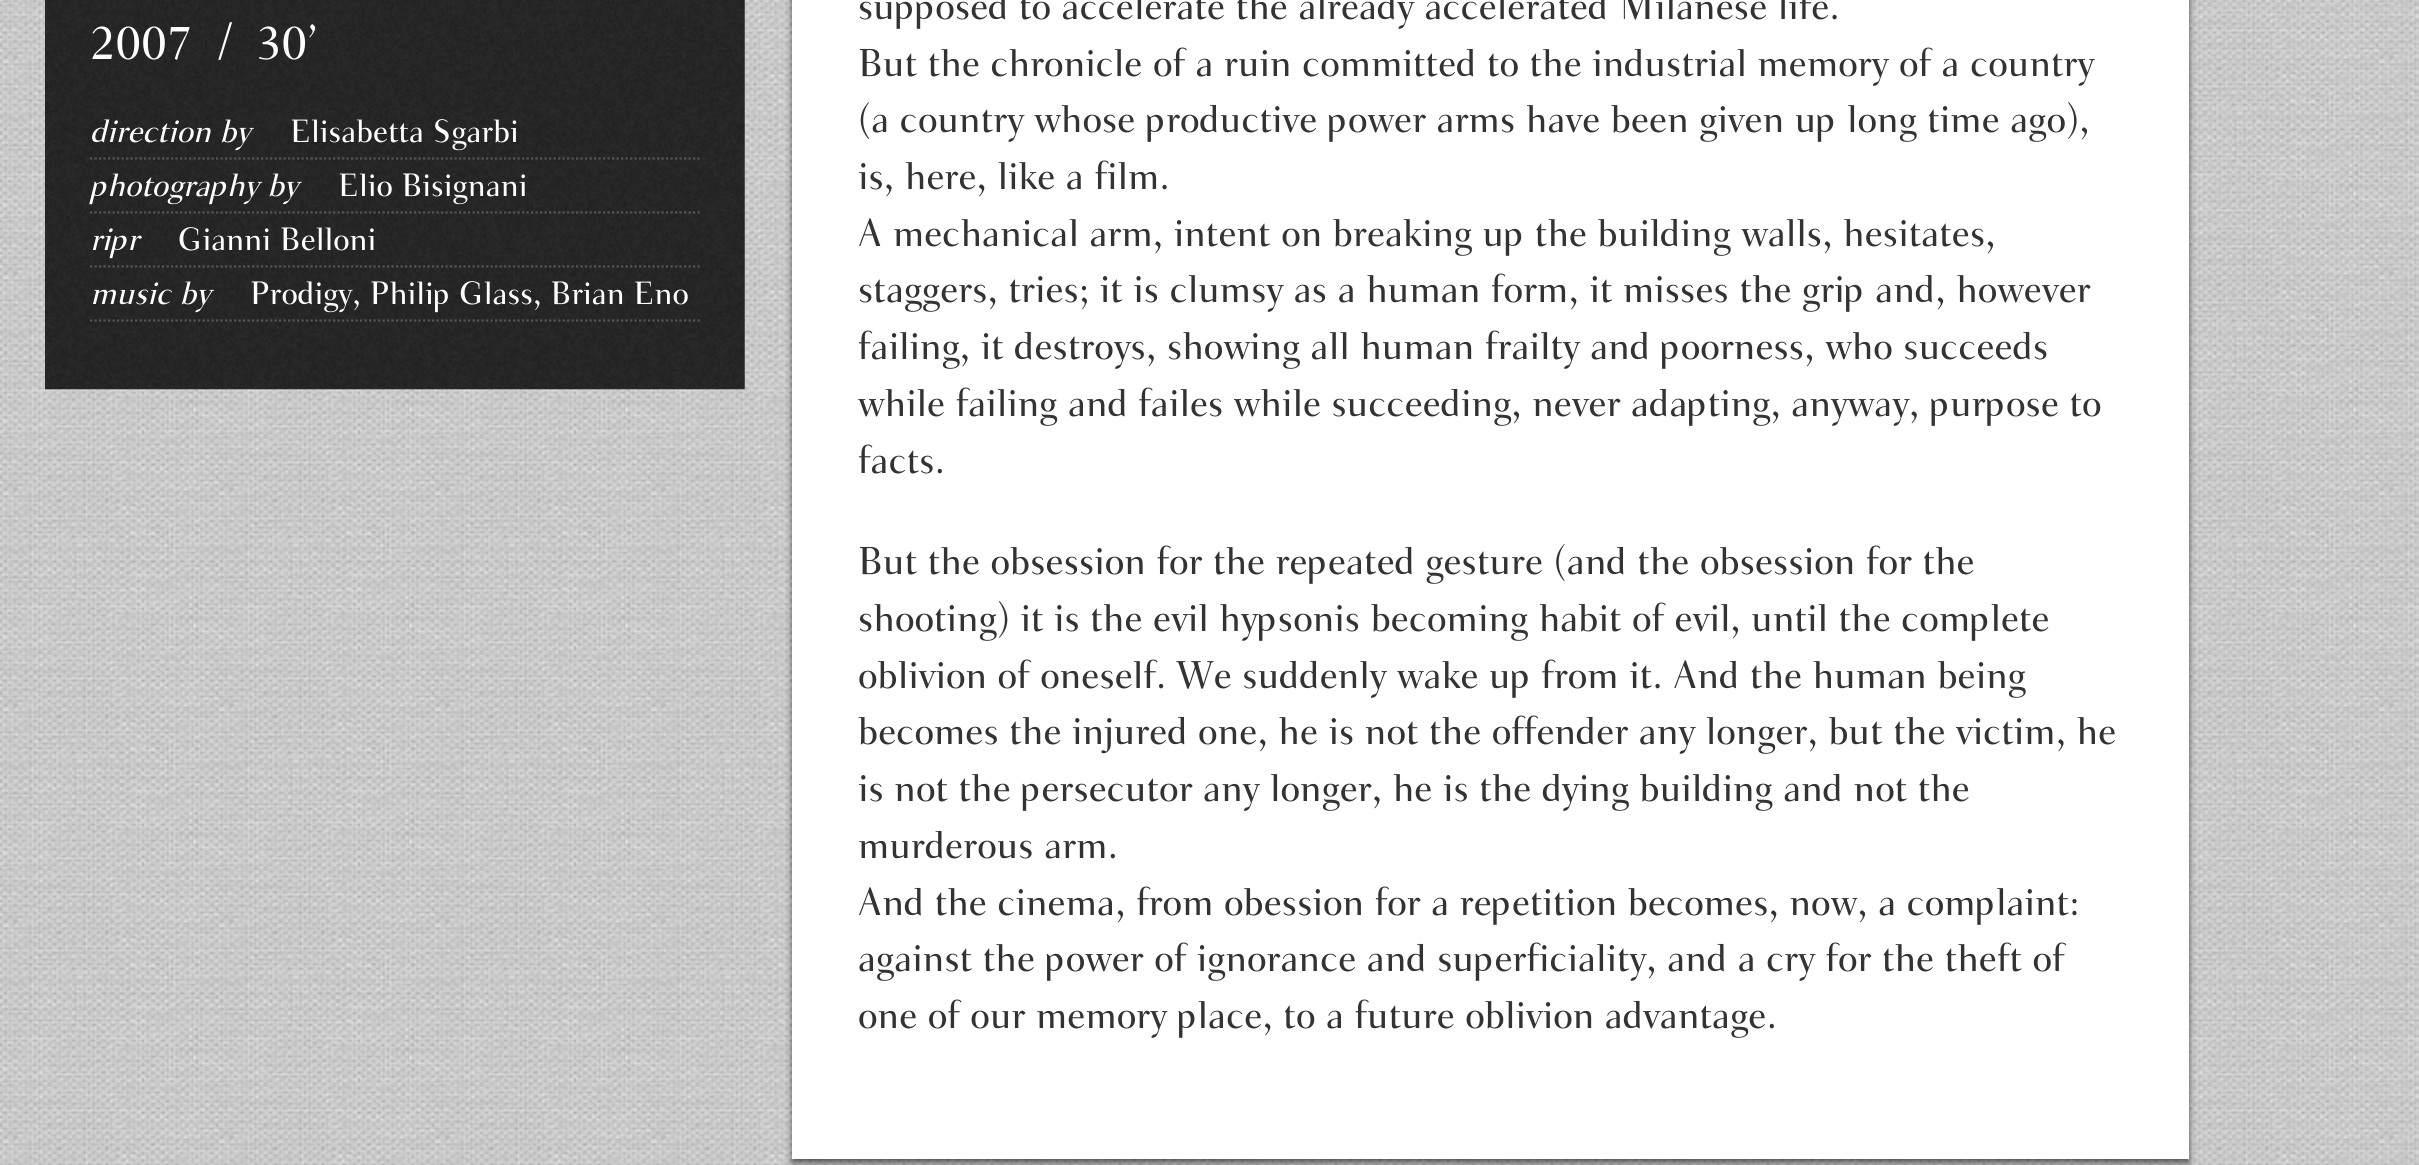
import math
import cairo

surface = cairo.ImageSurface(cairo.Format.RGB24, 2419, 1165)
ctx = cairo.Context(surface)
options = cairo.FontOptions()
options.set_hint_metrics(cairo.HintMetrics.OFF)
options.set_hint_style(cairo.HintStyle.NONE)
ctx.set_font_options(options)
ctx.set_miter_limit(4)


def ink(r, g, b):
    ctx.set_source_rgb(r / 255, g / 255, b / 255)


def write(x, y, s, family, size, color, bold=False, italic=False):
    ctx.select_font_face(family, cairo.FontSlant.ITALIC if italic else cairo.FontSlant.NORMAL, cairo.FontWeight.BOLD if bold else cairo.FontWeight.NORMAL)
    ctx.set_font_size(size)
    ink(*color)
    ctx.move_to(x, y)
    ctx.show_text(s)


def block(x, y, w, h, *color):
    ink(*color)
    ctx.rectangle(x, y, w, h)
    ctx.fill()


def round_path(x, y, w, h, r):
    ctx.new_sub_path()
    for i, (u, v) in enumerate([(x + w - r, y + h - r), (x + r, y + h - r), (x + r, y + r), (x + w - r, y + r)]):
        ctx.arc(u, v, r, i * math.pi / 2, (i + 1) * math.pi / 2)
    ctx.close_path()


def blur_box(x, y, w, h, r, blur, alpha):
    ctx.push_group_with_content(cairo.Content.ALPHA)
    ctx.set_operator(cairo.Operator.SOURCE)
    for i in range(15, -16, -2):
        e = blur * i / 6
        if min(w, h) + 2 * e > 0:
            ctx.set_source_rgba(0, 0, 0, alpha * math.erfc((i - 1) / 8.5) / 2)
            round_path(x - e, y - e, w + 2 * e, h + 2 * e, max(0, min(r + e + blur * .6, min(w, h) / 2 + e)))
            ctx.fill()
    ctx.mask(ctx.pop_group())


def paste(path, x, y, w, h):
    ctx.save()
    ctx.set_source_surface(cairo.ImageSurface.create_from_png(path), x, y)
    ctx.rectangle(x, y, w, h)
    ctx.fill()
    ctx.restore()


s1 = dict(family="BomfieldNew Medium", size=49.5, color=(255, 255, 255))
s2 = dict(family="BomfieldNew Medium", size=33.75, color=(255, 255, 255), italic=True)
s3 = dict(family="BomfieldNew Medium", size=33.75, color=(255, 255, 255))
s4 = dict(family="BomfieldNew Medium", size=40.5, color=(51, 51, 51))

ink(255, 255, 255)
ctx.paint()
paste("pic1.png", 0, 0, 2419, 1165)
paste("pic2.png", 45, 0, 700, 390)
write(90, 59, "2007", **s1)
write(218, 59, "/", **s1)
write(256, 59, "30’", **s1)
ctx.new_path()
ctx.move_to(90, 158.5)
ctx.line_to(700, 158.5)
ink(85, 85, 85)
ctx.set_line_width(2.2)
ctx.set_dash([2.25, 2.25])
ctx.stroke()
write(90, 142, "direction by", **s2)
write(290, 142, "Elisabetta Sgarbi", **s3)
ctx.new_path()
ctx.move_to(90, 212.5)
ctx.line_to(700, 212.5)
ink(85, 85, 85)
ctx.stroke()
write(90, 196, "photography by", **s2)
write(338, 196, "Elio Bisignani", **s3)
ctx.new_path()
ctx.move_to(90, 266.5)
ctx.line_to(700, 266.5)
ink(85, 85, 85)
ctx.stroke()
write(90, 250, "ripr", **s2)
write(178, 250, "Gianni Belloni", **s3)
ctx.new_path()
ctx.move_to(90, 320.5)
ctx.line_to(700, 320.5)
ink(85, 85, 85)
ctx.stroke()
write(90, 304, "music by", **s2)
write(250, 304, "Prodigy, Philip Glass, Brian Eno", **s3)
ink(0, 0, 0)
blur_box(792, -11, 1397, 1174, 0, 3.5, 0.6)
block(792, 0, 1397, 1159, 255, 255, 255)
write(858, 19, "supposed to accelerate the already accelerated Milanese life.", **s4)
write(858, 76, "But the chronicle of a ruin committed to the industrial memory of a country", **s4)
write(858, 132, "(a country whose productive power arms have been given up long time ago),", **s4)
write(858, 189, "is, here, like a film.", **s4)
write(858, 246, "A mechanical arm, intent on breaking up the building walls, hesitates,", **s4)
write(858, 302, "staggers, tries; it is clumsy as a human form, it misses the grip and, however", **s4)
write(858, 359, "failing, it destroys, showing all human frailty and poorness, who succeeds", **s4)
write(858, 416, "while failing and failes while succeeding, never adapting, anyway, purpose to", **s4)
write(858, 473, "facts.", **s4)
write(858, 574, "But the obsession for the repeated gesture (and the obsession for the", **s4)
write(858, 631, "shooting) it is the evil hypsonis becoming habit of evil, until the complete", **s4)
write(858, 688, "oblivion of oneself. We suddenly wake up from it. And the human being", **s4)
write(858, 744, "becomes the injured one, he is not the offender any longer, but the victim, he", **s4)
write(858, 801, "is not the persecutor any longer, he is the dying building and not the", **s4)
write(858, 858, "murderous arm.", **s4)
write(858, 915, "And the cinema, from obession for a repetition becomes, now, a complaint:", **s4)
write(858, 971, "against the power of ignorance and superficiality, and a cry for the theft of", **s4)
write(858, 1028, "one of our memory place, to a future oblivion advantage.", **s4)
surface.write_to_png("screenshot.png")
